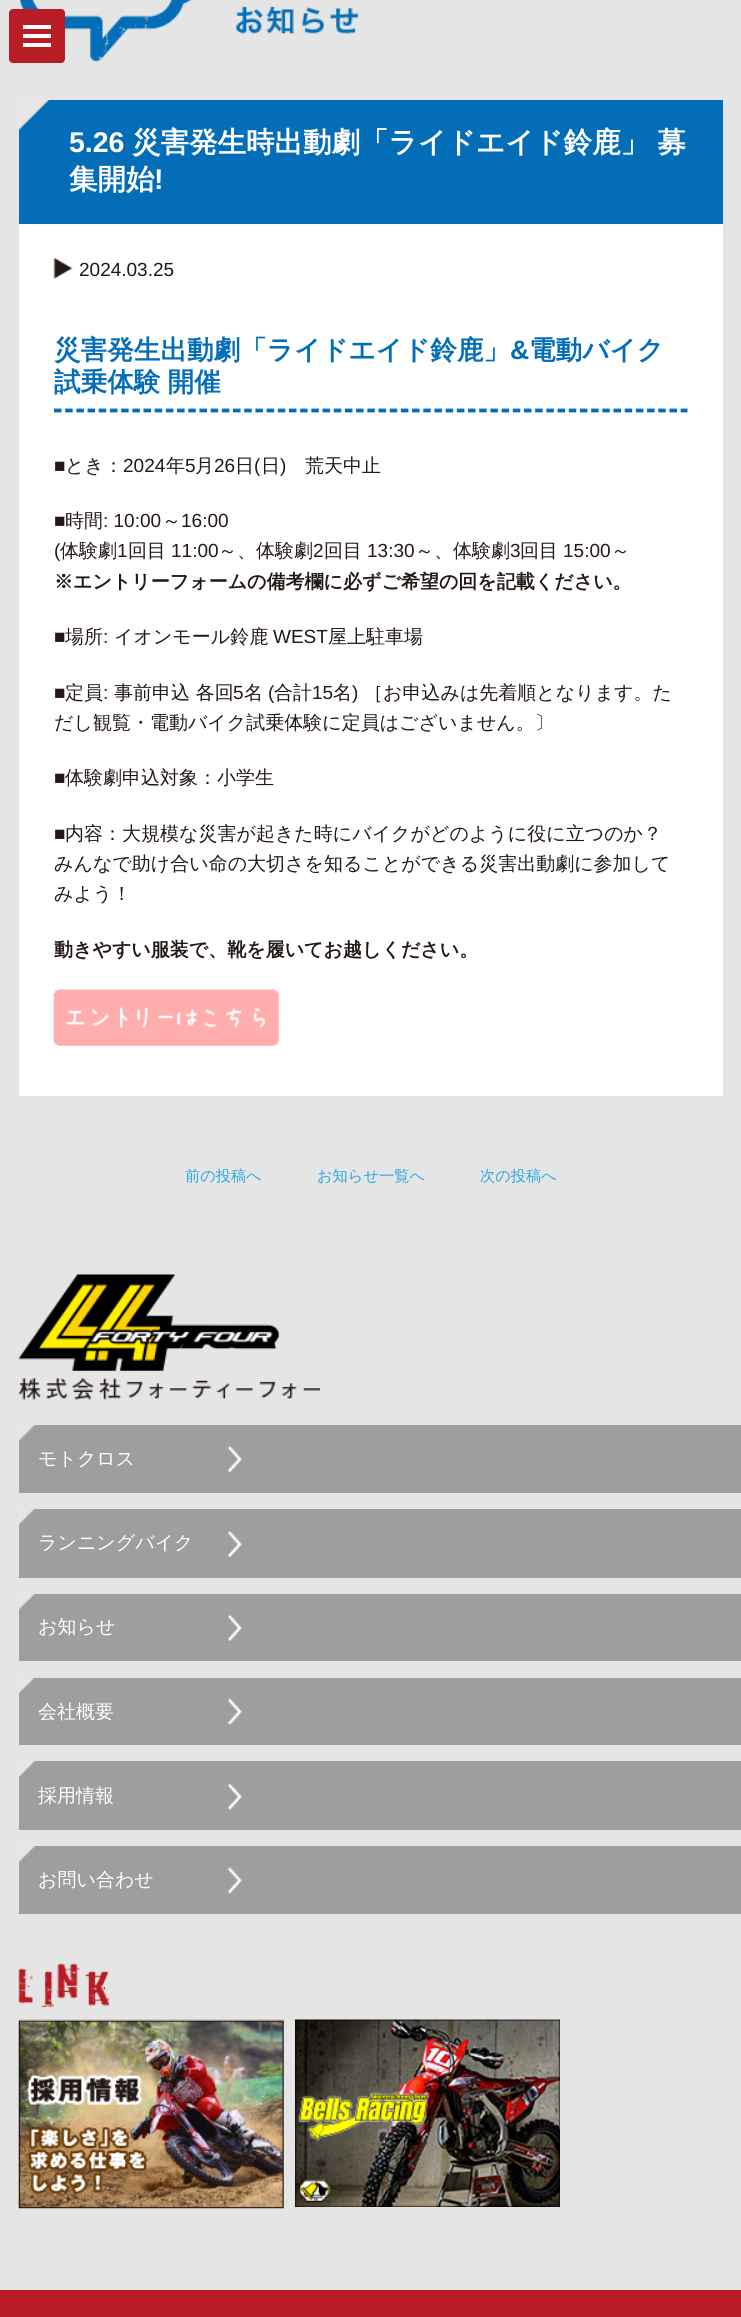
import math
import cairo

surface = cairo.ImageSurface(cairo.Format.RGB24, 741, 2317)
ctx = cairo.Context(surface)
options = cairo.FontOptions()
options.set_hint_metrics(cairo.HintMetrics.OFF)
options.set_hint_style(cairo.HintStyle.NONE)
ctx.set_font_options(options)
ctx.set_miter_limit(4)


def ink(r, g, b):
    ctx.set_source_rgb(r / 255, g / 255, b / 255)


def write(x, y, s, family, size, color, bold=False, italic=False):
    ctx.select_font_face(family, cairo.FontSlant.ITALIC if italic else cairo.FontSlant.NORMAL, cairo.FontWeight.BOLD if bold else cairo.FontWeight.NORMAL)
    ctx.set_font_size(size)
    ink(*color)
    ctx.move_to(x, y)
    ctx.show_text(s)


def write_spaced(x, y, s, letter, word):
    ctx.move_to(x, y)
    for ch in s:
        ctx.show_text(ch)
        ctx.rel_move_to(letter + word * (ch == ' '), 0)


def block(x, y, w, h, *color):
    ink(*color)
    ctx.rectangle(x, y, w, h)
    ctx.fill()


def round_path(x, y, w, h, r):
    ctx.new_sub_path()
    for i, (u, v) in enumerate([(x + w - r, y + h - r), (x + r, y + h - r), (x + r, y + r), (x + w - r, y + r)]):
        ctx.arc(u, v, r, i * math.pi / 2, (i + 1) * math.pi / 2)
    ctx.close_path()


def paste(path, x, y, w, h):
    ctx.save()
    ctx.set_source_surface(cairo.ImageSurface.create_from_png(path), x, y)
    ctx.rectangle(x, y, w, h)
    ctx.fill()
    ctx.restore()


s1 = dict(family="Liberation Sans", size=28.5, color=(255, 255, 255), bold=True)
s2 = dict(family="WenQuanYi Zen Hei", size=28.5, color=(255, 255, 255), bold=True)
s3 = dict(family="Liberation Sans", size=19, color=(35, 24, 21))
s4 = dict(family="WenQuanYi Zen Hei", size=26.6, color=(3, 110, 183), bold=True)
s5 = dict(family="Liberation Sans", size=26.6, color=(3, 110, 183), bold=True)
s6 = dict(family="WenQuanYi Zen Hei Medium", size=19, color=(35, 24, 21))
s7 = dict(family="WenQuanYi Zen Hei", size=19, color=(35, 24, 21), bold=True)
s8 = dict(family="WenQuanYi Zen Hei Medium", size=15.25, color=(44, 166, 224))
s9 = dict(family="WenQuanYi Zen Hei Medium", size=19, color=(255, 255, 255))

ink(230, 229, 229)
ctx.paint()
paste("pic1.png", 19, 0, 340, 62)
ink(184, 28, 37)
round_path(9, 9, 56, 54, 4)
ctx.fill()
block(23, 25, 28, 4, 255, 255, 255)
block(23, 34, 28, 4, 255, 255, 255)
block(23, 43, 28, 4, 255, 255, 255)
block(19, 100, 704, 124, 3, 110, 183)
paste("pic2.png", 18, 99, 31, 31)
write(69, 152, "5.26", **s1)
write(132, 152, "災害発生時出動劇「ライドエイド鈴鹿」 募", **s2)
write(69, 189, "集開始", **s2)
write(154, 189, "!", **s1)
block(19, 224, 704, 872, 255, 255, 255)
paste("pic3.png", 53, 258, 20, 21)
write(79, 276, "2024.03.25", **s3)
ctx.new_path()
ctx.move_to(54, 410.5)
ctx.line_to(687.5, 410.5)
ink(3, 110, 183)
ctx.set_line_width(3.8)
ctx.set_dash([7.5, 3.69])
ctx.stroke()
write(54, 359, "災害発生出動劇「ライドエイド鈴鹿」", **s4)
write(510, 359, "&", **s5)
write(529, 359, "電動バイク", **s4)
write_spaced(54, 391, "試乗体験 開催", 0, -1)
write(54, 472, "■", **s3)
write(65, 472, "とき：", **s6)
write(123, 472, "2024", **s3)
write(166, 472, "年", **s6)
write(185, 472, "5", **s3)
write(195, 472, "月", **s6)
write(214, 472, "26", **s3)
write(235, 472, "日", **s6)
write(254, 472, "(", **s3)
write(261, 472, "日", **s6)
write(280, 472, ")", **s3)
write(305, 472, "荒天中止", **s6)
write(54, 527, "■", **s3)
write(65, 527, "時間", **s6)
write(103, 527, ": 10:00", **s3)
write(162, 527, "～", **s6)
write(181, 527, "16:00", **s3)
write(54, 557, "(", **s3)
write(60, 557, "体験劇", **s6)
write(117, 557, "1", **s3)
write(128, 557, "回目", **s6)
write(171, 557, "11:00", **s3)
write(218, 557, "～、体験劇", **s6)
write(313, 557, "2", **s3)
write(324, 557, "回目", **s6)
write(367, 557, "13:30", **s3)
write(415, 557, "～、体験劇", **s6)
write(510, 557, "3", **s3)
write(520, 557, "回目", **s6)
write(563, 557, "15:00", **s3)
write(611, 557, "～", **s6)
write(54, 588, "※エントリーフォームの備考欄に必ずご希望の回を記載ください。", **s7)
write(54, 643, "■", **s3)
write(65, 643, "場所", **s6)
write(103, 643, ":", **s3)
write(114, 643, "イオンモール鈴鹿", **s6)
write(273, 643, "WEST", **s3)
write(328, 643, "屋上駐車場", **s6)
write(54, 699, "■", **s3)
write(65, 699, "定員", **s6)
write(103, 699, ":", **s3)
write(114, 699, "事前申込 各回", **s6)
write(233, 699, "5", **s3)
write(244, 699, "名", **s6)
write(268, 699, "(", **s3)
write(274, 699, "合計", **s6)
write(312, 699, "15", **s3)
write(333, 699, "名", **s6)
write(352, 699, ")", **s3)
write(364, 699, "［お申込みは先着順となります。た", **s6)
write(54, 729, "だし観覧・電動バイク試乗体験に定員はございません。〕", **s6)
write(54, 784, "■", **s3)
write(65, 784, "体験劇申込対象：小学生", **s6)
write(54, 840, "■", **s3)
write(65, 840, "内容：大規模な災害が起きた時にバイクがどのように役に立つのか？", **s6)
write(54, 870, "みんなで助け合い命の大切さを知ることができる災害出動劇に参加して", **s6)
write(54, 900, "みよう！", **s6)
write(54, 956, "動きやすい服装で、靴を履いてお越しください。", **s7)
paste("pic4.png", 53, 989, 226, 57)
write(185, 1181, "前の投稿へ", **s8)
write(317, 1181, "お知らせ一覧へ", **s8)
write(480, 1181, "次の投稿へ", **s8)
paste("pic5.png", 18, 1274, 302, 126)
block(19, 1425, 722, 68, 158, 158, 159)
paste("pic6.png", 19, 1425, 16, 16)
write(38, 1465, "モトクロス", **s9)
paste("pic7.png", 227, 1445, 15, 27)
block(19, 1509, 722, 69, 158, 158, 159)
paste("pic8.png", 19, 1509, 16, 16)
write(38, 1549, "ランニングバイク", **s9)
paste("pic7.png", 227, 1530, 15, 27)
block(19, 1594, 722, 67, 158, 158, 159)
paste("pic8.png", 19, 1594, 16, 16)
write(38, 1633, "お知らせ", **s9)
paste("pic9.png", 227, 1614, 16, 27)
block(19, 1678, 722, 67, 158, 158, 159)
paste("pic10.png", 19, 1678, 16, 16)
write(38, 1718, "会社概要", **s9)
paste("pic11.png", 227, 1698, 16, 27)
block(19, 1761, 722, 69, 158, 158, 159)
paste("pic12.png", 19, 1761, 16, 16)
write(38, 1802, "採用情報", **s9)
paste("pic13.png", 227, 1783, 16, 27)
block(19, 1846, 722, 68, 158, 158, 159)
paste("pic12.png", 19, 1846, 16, 16)
write(38, 1886, "お問い合わせ", **s9)
paste("pic14.png", 227, 1867, 16, 27)
paste("pic15.png", 18, 1963, 92, 44)
paste("pic16.png", 18, 2019, 266, 190)
paste("pic17.png", 295, 2019, 265, 188)
block(0, 2290, 741, 27, 184, 28, 37)
surface.write_to_png("screenshot.png")
